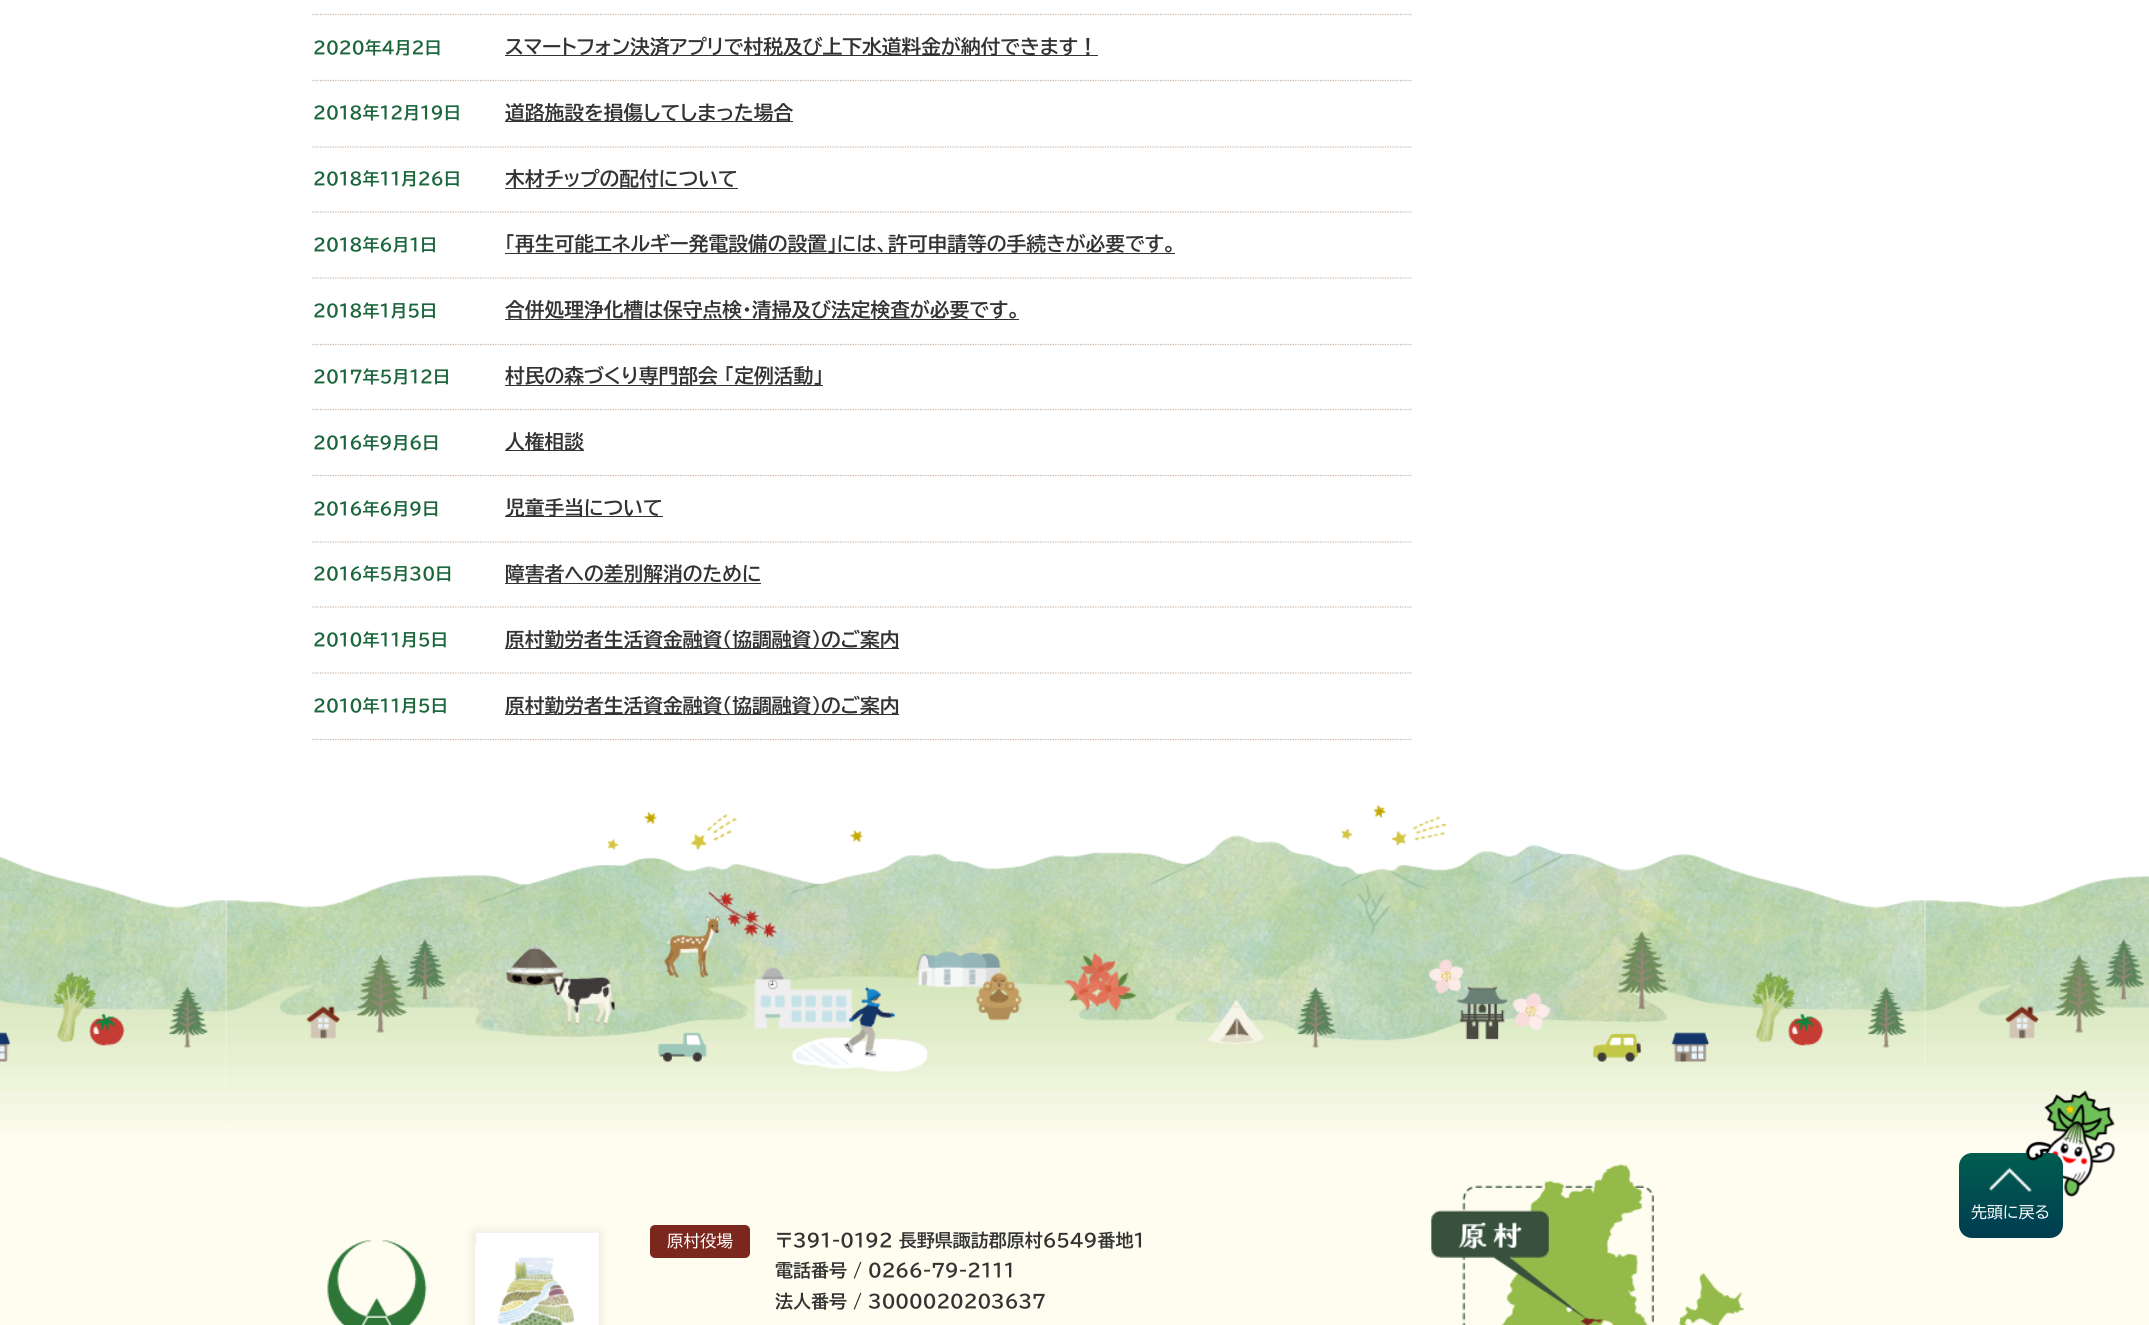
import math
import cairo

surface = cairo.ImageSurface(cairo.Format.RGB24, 2149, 1325)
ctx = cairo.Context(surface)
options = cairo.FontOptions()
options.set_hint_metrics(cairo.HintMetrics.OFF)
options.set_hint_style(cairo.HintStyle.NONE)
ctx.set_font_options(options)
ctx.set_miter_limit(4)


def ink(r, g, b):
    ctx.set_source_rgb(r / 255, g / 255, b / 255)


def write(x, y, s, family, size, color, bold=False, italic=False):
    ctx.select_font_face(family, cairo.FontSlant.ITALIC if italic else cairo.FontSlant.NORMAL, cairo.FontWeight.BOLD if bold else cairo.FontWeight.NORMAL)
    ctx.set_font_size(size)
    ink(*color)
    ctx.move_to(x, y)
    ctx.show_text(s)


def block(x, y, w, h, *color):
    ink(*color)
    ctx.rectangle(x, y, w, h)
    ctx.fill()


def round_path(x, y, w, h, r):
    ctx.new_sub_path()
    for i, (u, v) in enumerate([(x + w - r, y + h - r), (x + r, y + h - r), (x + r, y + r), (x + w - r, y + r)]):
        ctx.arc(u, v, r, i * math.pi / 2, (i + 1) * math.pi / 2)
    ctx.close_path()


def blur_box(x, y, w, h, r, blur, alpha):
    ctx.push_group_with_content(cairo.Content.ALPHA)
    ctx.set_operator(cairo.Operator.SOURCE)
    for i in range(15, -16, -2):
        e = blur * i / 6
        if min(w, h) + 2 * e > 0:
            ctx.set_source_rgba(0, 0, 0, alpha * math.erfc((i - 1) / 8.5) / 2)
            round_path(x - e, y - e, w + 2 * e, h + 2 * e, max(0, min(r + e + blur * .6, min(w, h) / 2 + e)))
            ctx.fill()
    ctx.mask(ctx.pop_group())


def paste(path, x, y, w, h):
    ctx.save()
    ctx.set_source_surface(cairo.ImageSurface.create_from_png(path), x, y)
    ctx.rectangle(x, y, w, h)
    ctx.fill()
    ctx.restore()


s1 = dict(family="BIZ UDPGothic", size=17, color=(27, 102, 59), bold=True)
s2 = dict(family="BIZ UDPGothic", size=19.75, color=(51, 51, 51), bold=True)
s3 = dict(family="BIZ UDPGothic", size=16, color=(255, 255, 255))
s4 = dict(family="BIZ UDPGothic", size=16.5, color=(255, 255, 255))
s5 = dict(family="BIZ UDPGothic", size=18, color=(51, 51, 51), bold=True)

ink(255, 255, 255)
ctx.paint()
ctx.new_path()
ctx.move_to(312.5, 14.5)
ctx.line_to(1412.5, 14.5)
ink(199, 180, 165)
ctx.set_line_width(1.2)
ctx.set_dash([1.25, 1.25])
ctx.stroke()
write(313, 54, "2020年4月2日", **s1)
block(505, 55, 593, 1, 51, 51, 51)
write(505, 54, "スマートフォン決済アプリで村税及び上下水道料金が納付できます！", **s2)
ctx.new_path()
ctx.move_to(312.5, 80.5)
ctx.line_to(1412.5, 80.5)
ink(199, 180, 165)
ctx.stroke()
write(313, 119, "2018年12月19日", **s1)
block(505, 121, 288, 1, 51, 51, 51)
write(505, 120, "道路施設を損傷してしまった場合", **s2)
ctx.new_path()
ctx.move_to(312.5, 147)
ctx.line_to(1412.5, 147)
ink(199, 180, 165)
ctx.stroke()
write(313, 185, "2018年11月26日", **s1)
write(505, 186, "木材チップの配付について", **s2)
block(505, 188, 233, 1, 51, 51, 51)
ctx.new_path()
ctx.move_to(312.5, 212)
ctx.line_to(1412.5, 212)
ink(199, 180, 165)
ctx.stroke()
write(313, 251, "2018年6月1日", **s1)
write(505, 251, "「再生可能エネルギー発電設備の設置」には、許可申請等の手続きが必要です。", **s2)
block(505, 253, 670, 1, 51, 51, 51)
ctx.new_path()
ctx.move_to(312.5, 278)
ctx.line_to(1412.5, 278)
ink(199, 180, 165)
ctx.stroke()
write(313, 317, "2018年1月5日", **s1)
block(505, 319, 514, 1, 51, 51, 51)
write(505, 317, "合併処理浄化槽は保守点検・清掃及び法定検査が必要です。", **s2)
ctx.new_path()
ctx.move_to(312.5, 344.5)
ctx.line_to(1412.5, 344.5)
ink(199, 180, 165)
ctx.stroke()
write(313, 383, "2017年5月12日", **s1)
write(505, 383, "村民の森づくり専門部会 「定例活動」", **s2)
block(505, 385, 318, 1, 51, 51, 51)
ctx.new_path()
ctx.move_to(312.5, 409.5)
ctx.line_to(1412.5, 409.5)
ink(199, 180, 165)
ctx.stroke()
write(313, 449, "2016年9月6日", **s1)
block(505, 450, 79, 1, 51, 51, 51)
write(505, 449, "人権相談", **s2)
ctx.new_path()
ctx.move_to(312.5, 475.5)
ctx.line_to(1412.5, 475.5)
ink(199, 180, 165)
ctx.stroke()
write(313, 515, "2016年6月9日", **s1)
block(505, 516, 158, 1, 51, 51, 51)
write(505, 515, "児童手当について", **s2)
ctx.new_path()
ctx.move_to(312.5, 542)
ctx.line_to(1412.5, 542)
ink(199, 180, 165)
ctx.stroke()
write(313, 580, "2016年5月30日", **s1)
write(505, 581, "障害者への差別解消のために", **s2)
block(505, 583, 256, 1, 51, 51, 51)
ctx.new_path()
ctx.move_to(312.5, 607)
ctx.line_to(1412.5, 607)
ink(199, 180, 165)
ctx.stroke()
write(313, 646, "2010年11月5日", **s1)
block(505, 648, 394, 1, 51, 51, 51)
write(505, 647, "原村勤労者生活資金融資（協調融資）のご案内", **s2)
ctx.new_path()
ctx.move_to(312.5, 673)
ctx.line_to(1412.5, 673)
ink(199, 180, 165)
ctx.stroke()
ctx.new_path()
ctx.move_to(312.5, 739.5)
ctx.line_to(1412.5, 739.5)
ctx.stroke()
write(313, 712, "2010年11月5日", **s1)
block(505, 714, 394, 1, 51, 51, 51)
write(505, 713, "原村勤労者生活資金融資（協調融資）のご案内", **s2)
paste("pic1.png", 0, 805, 2149, 359)
block(0, 1164, 2149, 161, 254, 253, 239)
paste("pic2.png", 2025, 1090, 91, 107)
gradient = cairo.LinearGradient(2011, 1153, 2011, 1238)
gradient.add_color_stop_rgba(0, 0, 0.365, 0.314, 1)
gradient.add_color_stop_rgba(1, 0, 0.239, 0.314, 1)
ctx.set_source(gradient)
round_path(1959, 1153, 104, 85, 13)
ctx.fill()
paste("pic3.png", 2026, 1141, 25, 20)
paste("pic4.png", 1988, 1167, 44, 25)
block(1971, 1219, 79, 1, 0, 58, 104)
write(1971, 1218, "先頭に戻る", **s3)
ink(128, 128, 128)
blur_box(475, 1233, 124, 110, 0, 6, 0.22)
paste("pic5.png", 327, 1240, 100, 85)
paste("pic6.png", 475, 1232, 124, 93)
ink(124, 39, 30)
round_path(650, 1225, 100, 33, 5)
ctx.fill()
write(667, 1247, "原村役場", **s4)
write(775, 1247, "〒391-0192 長野県諏訪郡原村6549番地1", **s5)
write(775, 1277, "電話番号 / 0266-79-2111", **s5)
write(775, 1308, "法人番号 / 3000020203637", **s5)
paste("pic7.png", 1431, 1164, 313, 161)
surface.write_to_png("screenshot.png")
